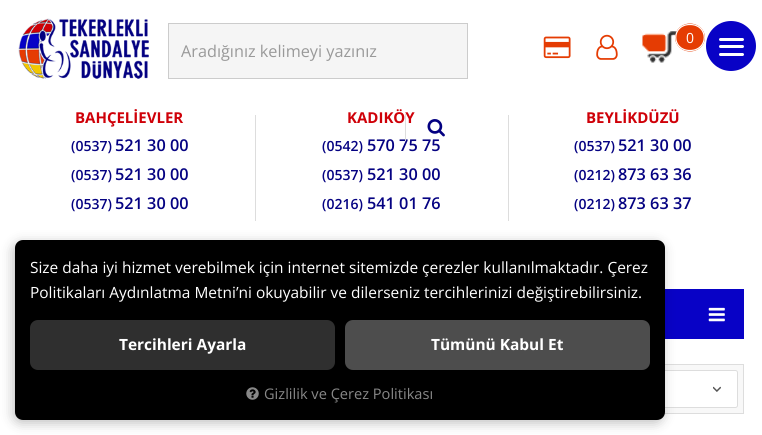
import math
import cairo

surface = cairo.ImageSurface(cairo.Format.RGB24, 762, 435)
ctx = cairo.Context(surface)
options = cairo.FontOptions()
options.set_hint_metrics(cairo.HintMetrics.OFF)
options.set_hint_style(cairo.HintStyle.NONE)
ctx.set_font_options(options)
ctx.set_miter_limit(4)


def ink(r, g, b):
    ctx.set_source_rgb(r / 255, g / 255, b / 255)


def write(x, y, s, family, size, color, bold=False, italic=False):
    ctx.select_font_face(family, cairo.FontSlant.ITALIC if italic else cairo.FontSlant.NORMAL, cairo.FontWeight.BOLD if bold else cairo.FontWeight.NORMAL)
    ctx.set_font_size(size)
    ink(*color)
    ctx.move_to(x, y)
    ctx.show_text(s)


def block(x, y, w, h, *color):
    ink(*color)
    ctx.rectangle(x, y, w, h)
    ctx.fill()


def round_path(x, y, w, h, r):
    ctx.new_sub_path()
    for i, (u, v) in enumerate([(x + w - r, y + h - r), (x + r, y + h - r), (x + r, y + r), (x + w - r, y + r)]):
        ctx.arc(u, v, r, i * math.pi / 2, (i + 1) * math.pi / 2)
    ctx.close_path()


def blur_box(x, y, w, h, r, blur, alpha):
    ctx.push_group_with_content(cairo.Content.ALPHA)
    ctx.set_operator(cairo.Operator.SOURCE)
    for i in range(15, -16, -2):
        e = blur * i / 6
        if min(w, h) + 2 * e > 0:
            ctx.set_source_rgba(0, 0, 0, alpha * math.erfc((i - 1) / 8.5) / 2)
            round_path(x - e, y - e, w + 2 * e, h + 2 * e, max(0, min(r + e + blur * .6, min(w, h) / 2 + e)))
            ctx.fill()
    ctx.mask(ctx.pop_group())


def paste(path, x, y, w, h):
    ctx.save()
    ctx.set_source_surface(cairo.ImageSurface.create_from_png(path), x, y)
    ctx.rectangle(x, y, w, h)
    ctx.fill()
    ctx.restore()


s1 = dict(family="Open Sans", size=16.25, color=(153, 153, 153))
s2 = dict(family="Open Sans", size=15, color=(207, 0, 8), bold=True)
s3 = dict(family="Open Sans SemiBold", size=16.25, color=(5, 2, 130))
s4 = dict(family="Open Sans", size=14, color=(255, 255, 255))
s5 = dict(family="Open Sans SemiBold", size=14, color=(5, 2, 130))
s6 = dict(family="Open Sans", size=15.45, color=(255, 255, 255))
s7 = dict(family="Open Sans", size=15.45, color=(255, 255, 255), bold=True)
s8 = dict(family="Open Sans", size=14.6, color=(136, 136, 136))

ink(255, 255, 255)
ctx.paint()
paste("pic1.png", 18, 18, 131, 61)
ink(245, 245, 245)
ctx.rectangle(168.5, 23.5, 299, 55)
ctx.fill_preserve()
ink(204, 204, 204)
ctx.set_line_width(1)
ctx.stroke()
write(181, 57, "Aradığınız kelimeyi yazınız", **s1)
write(347, 123, "KADIKÖY", **s2)
write(367, 151, "570 75 75", **s3)
block(405, 114, 1, 27, 221, 221, 221)
paste("pic2.png", 427, 119, 18, 18)
paste("pic3.png", 543, 36, 28, 23)
paste("pic4.png", 596, 34, 22, 26)
paste("pic5.png", 642, 31, 35, 32)
ink(229, 60, 3)
ctx.new_path()
ctx.move_to(690, 23.5)
ctx.curve_to(698.5, 23.5, 705, 30, 705, 37.5)
ctx.curve_to(705, 45, 698.5, 51.5, 690, 51.5)
ctx.curve_to(681.5, 51.5, 675, 45, 675, 37.5)
ctx.curve_to(675, 30, 681.5, 23.5, 690, 23.5)
ctx.close_path()
ctx.fill()
ctx.new_path()
ctx.move_to(690, 24.5)
ctx.curve_to(709, 24.5, 709, 50.5, 690, 50.5)
ctx.curve_to(671, 50.5, 671, 24.5, 690, 24.5)
ctx.close_path()
ink(255, 255, 255)
ctx.set_line_width(1.2)
ctx.stroke()
write(686, 43, "0", **s4)
ink(8, 2, 198)
ctx.new_path()
ctx.arc(731, 46, 25, 0, 2 * math.pi)
ctx.fill()
ink(255, 255, 255)
round_path(719, 38, 25, 3, 1.5)
ctx.fill()
round_path(719, 45, 25, 3, 1.5)
ctx.fill()
round_path(719, 53, 25, 3, 1.5)
ctx.fill()
write(75, 123, "BAHÇELİEVLER", **s2)
write(71, 151, "(0537)", **s5)
write(115, 151, "521 30 00", **s3)
write(71, 180, "(0537)", **s5)
write(115, 180, "521 30 00", **s3)
write(71, 209, "(0537)", **s5)
write(115, 209, "521 30 00", **s3)
block(255, 115, 1, 106, 221, 221, 221)
write(322, 151, "(0542)", **s5)
write(322, 180, "(0537)", **s5)
write(367, 180, "521 30 00", **s3)
write(322, 209, "(0216)", **s5)
write(367, 209, "541 01 76", **s3)
block(508, 115, 1, 106, 221, 221, 221)
write(586, 123, "BEYLİKDÜZÜ", **s2)
write(574, 151, "(0537)", **s5)
write(618, 151, "521 30 00", **s3)
write(574, 180, "(0212)", **s5)
write(618, 180, "873 63 36", **s3)
write(574, 209, "(0212)", **s5)
write(618, 209, "873 63 37", **s3)
block(665, 289, 79, 50, 8, 2, 198)
block(664, 365, 79, 48, 248, 248, 248)
ctx.rectangle(19.5, 364.5, 724, 49)
ink(221, 221, 221)
ctx.set_line_width(1)
ctx.stroke()
ink(255, 255, 255)
round_path(25, 370, 713, 38, 2.5)
ctx.fill()
paste("pic8.png", 713, 386, 8, 6)
round_path(25.5, 370.5, 712, 37, 2)
ink(221, 221, 221)
ctx.stroke()
ink(0, 0, 0)
blur_box(13, 243, 650, 180, 8, 6, 0.25)
ink(0, 0, 0)
round_path(15, 240, 650, 180, 8)
ctx.fill()
write(30, 273, "Size daha iyi hizmet verebilmek için internet sitemizde çerezler kullanılmaktadır. Çerez", **s6)
write(30, 298, "Politikaları Aydınlatma Metni’ni okuyabilir ve dilerseniz tercihlerinizi değiştirebilirsiniz.", **s6)
ink(47, 47, 47)
round_path(30, 320, 305, 50, 8)
ctx.fill()
write(119, 350, "Tercihleri Ayarla", **s7)
ink(77, 77, 77)
round_path(345, 320, 305, 50, 8)
ctx.fill()
write(431, 350, "Tümünü Kabul Et", **s7)
paste("pic6.png", 246, 387, 13, 13)
write(264, 399, "Gizlilik ve Çerez Politikası", **s8)
paste("pic7.png", 708, 307, 17, 15)
surface.write_to_png("screenshot.png")
